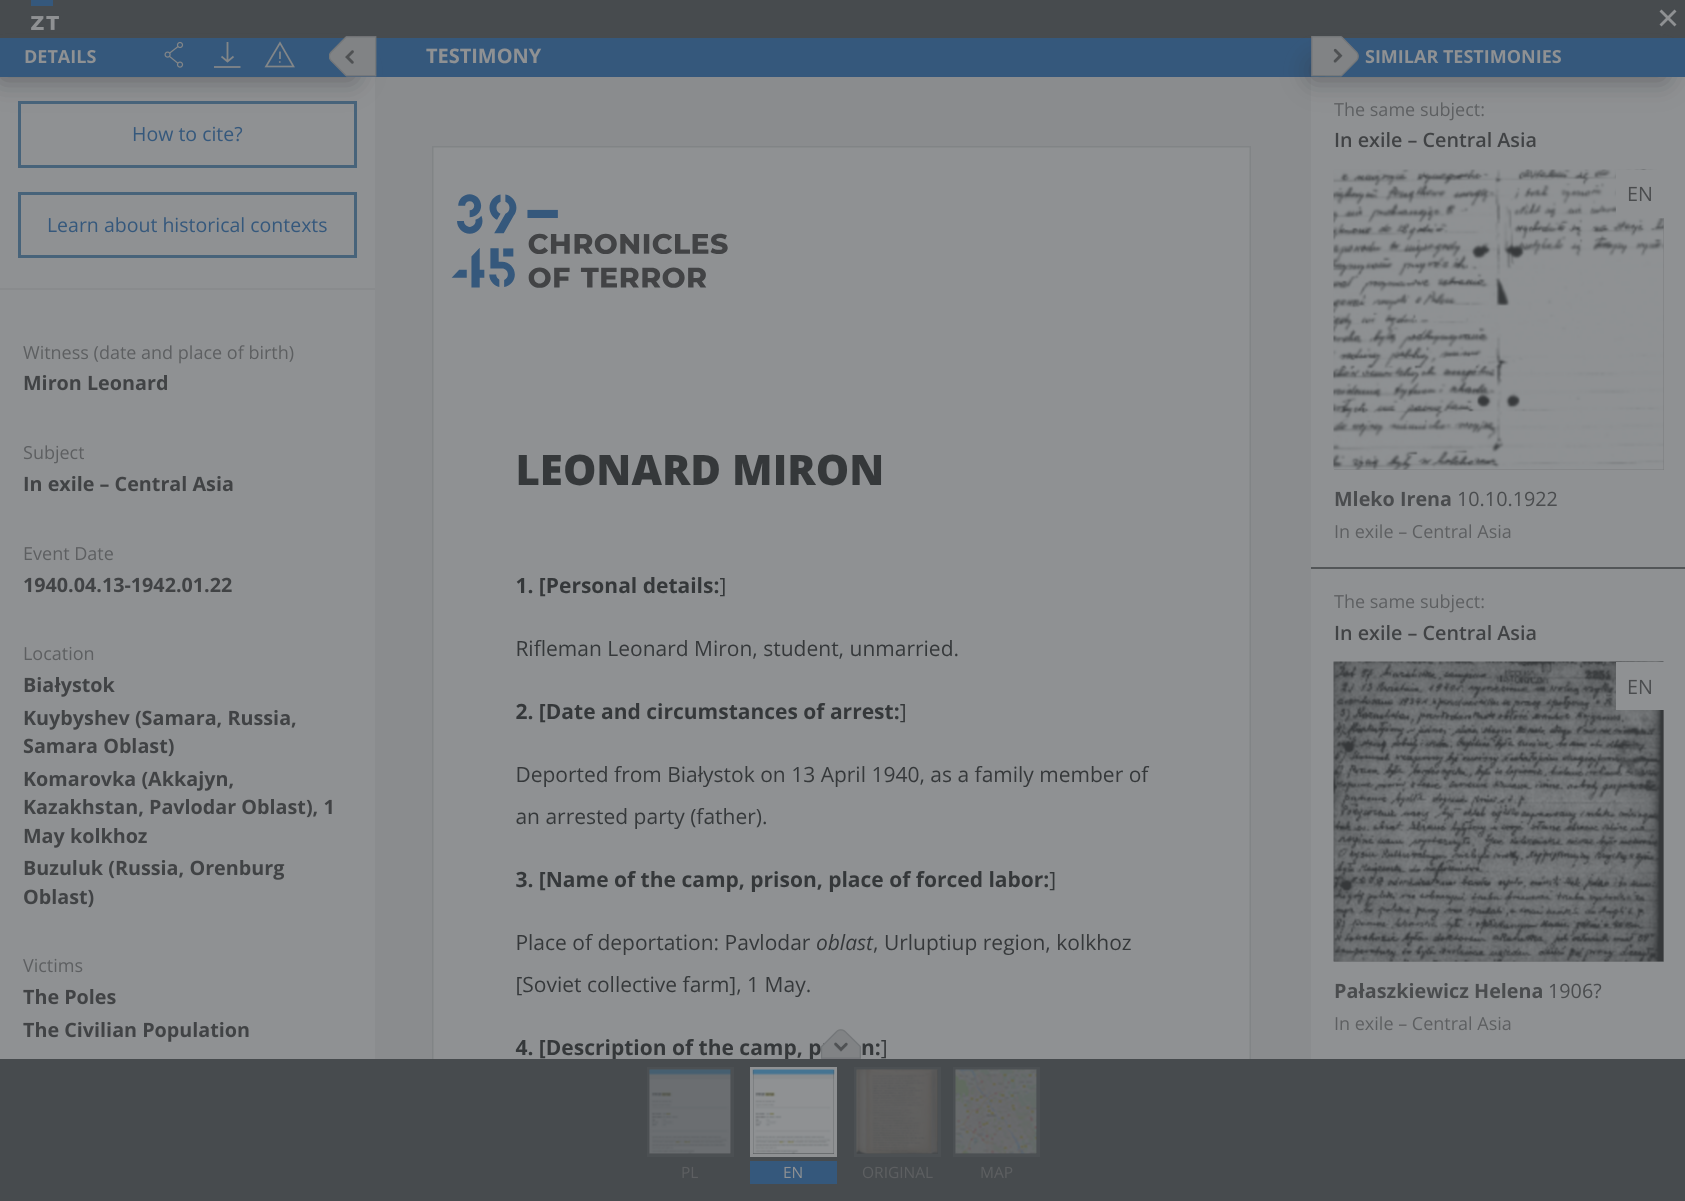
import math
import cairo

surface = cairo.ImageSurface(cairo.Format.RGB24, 1685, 1201)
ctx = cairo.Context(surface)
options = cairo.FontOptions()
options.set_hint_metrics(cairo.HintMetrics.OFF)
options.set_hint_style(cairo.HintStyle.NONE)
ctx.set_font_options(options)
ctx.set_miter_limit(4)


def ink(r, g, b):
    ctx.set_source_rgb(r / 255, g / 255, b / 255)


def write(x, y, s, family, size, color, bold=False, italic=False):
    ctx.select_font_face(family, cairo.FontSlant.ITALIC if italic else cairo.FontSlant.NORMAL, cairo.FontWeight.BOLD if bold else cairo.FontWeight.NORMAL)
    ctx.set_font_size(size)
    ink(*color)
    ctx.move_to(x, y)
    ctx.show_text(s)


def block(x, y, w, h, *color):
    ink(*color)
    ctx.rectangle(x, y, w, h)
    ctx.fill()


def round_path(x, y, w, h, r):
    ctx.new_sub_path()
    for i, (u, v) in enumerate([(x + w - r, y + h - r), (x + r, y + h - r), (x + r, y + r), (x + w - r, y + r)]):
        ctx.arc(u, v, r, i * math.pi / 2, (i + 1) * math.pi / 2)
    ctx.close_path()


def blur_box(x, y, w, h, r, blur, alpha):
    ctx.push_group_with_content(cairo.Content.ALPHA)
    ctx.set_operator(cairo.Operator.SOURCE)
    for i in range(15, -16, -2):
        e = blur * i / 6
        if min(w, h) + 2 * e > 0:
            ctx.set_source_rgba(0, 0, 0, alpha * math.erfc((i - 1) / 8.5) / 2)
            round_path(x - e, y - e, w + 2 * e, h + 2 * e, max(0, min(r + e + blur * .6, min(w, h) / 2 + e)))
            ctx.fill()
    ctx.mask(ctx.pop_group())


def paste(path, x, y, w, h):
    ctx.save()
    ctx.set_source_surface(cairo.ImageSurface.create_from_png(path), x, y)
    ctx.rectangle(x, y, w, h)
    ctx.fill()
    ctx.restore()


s1 = dict(family="Open Sans", size=18, color=(143, 145, 147), bold=True)
s2 = dict(family="Open Sans", size=19.5, color=(53, 88, 124))
s3 = dict(family="Open Sans", size=18, color=(93, 95, 97))
s4 = dict(family="Open Sans", size=19.75, color=(65, 67, 69), bold=True)
s5 = dict(family="Open Sans SemiBold", size=19.75, color=(65, 67, 69))
s6 = dict(family="Open Sans", size=19.75, color=(74, 76, 78))
s7 = dict(family="Open Sans", size=19.75, color=(74, 76, 78), bold=True)
s8 = dict(family="Open Sans", size=15.5, color=(93, 95, 97))
s9 = dict(family="Open Sans", size=15.5, color=(143, 145, 147))

ink(71, 75, 78)
ctx.paint()
paste("pic1.png", 31, 0, 28, 30)
ink(143, 145, 147)
ctx.new_path()
ctx.move_to(1659.5, 24.5)
ctx.line_to(1674.5, 9.5)
ctx.line_to(1676.5, 11.5)
ctx.line_to(1661.5, 26.5)
ctx.close_path()
ctx.fill()
ctx.new_path()
ctx.move_to(1661.5, 9.5)
ctx.line_to(1676.5, 24.5)
ctx.line_to(1674.5, 26.5)
ctx.line_to(1659.5, 11.5)
ctx.close_path()
ctx.fill()
block(0, 77, 375, 982, 143, 145, 147)
paste("pic4.png", 375, 38, 936, 1021)
ink(53, 56, 58)
blur_box(5, 66, 345, 9, 0, 15, 0.65)
block(0, 38, 375, 39, 53, 88, 124)
write(24, 63, "DETAILS", **s1)
paste("pic2.png", 164, 41, 20, 27)
ctx.new_path()
ctx.move_to(214, 67)
ctx.line_to(240.5, 67)
ctx.move_to(227.5, 42)
ctx.line_to(227.5, 61.5)
ctx.move_to(227.5, 61.5)
ctx.line_to(221.5, 56.5)
ctx.line_to(227.5, 61.5)
ctx.line_to(233.5, 56.5)
ink(131, 134, 136)
ctx.set_line_width(1.8)
ctx.stroke()
ctx.new_path()
ctx.move_to(280, 66.5)
ctx.line_to(266, 66.5)
ctx.line_to(280, 43)
ctx.line_to(293.5, 66.5)
ctx.close_path()
ctx.move_to(280, 51.5)
ctx.line_to(280, 59)
ctx.set_line_width(1.7)
ctx.stroke()
ctx.arc(279.8, 62, 0.9, 0, 2 * math.pi)
ctx.fill()
paste("pic3.png", 329, 36, 48, 41)
ctx.rectangle(19.5, 102.5, 336, 64)
ink(71, 99, 122)
ctx.set_line_width(3)
ctx.stroke()
write(132, 141, "How to cite?", **s2)
ctx.rectangle(19.5, 193.5, 336, 63)
ink(71, 99, 122)
ctx.stroke()
write(47, 232, "Learn about historical contexts", **s2)
block(0, 288, 375, 2, 137, 139, 141)
write(23, 359, "Witness (date and place of birth)", **s3)
write(23, 390, "Miron Leonard", **s4)
write(23, 459, "Subject", **s3)
write(23, 491, "In exile – Central Asia", **s4)
write(23, 560, "Event Date", **s3)
write(23, 592, "1940.04.13-1942.01.22", **s4)
write(23, 660, "Location", **s3)
write(23, 692, "Białystok", **s4)
write(23, 725, "Kuybyshev (Samara, Russia,", **s4)
write(23, 753, "Samara Oblast)", **s4)
write(23, 786, "Komarovka (Akkajyn,", **s4)
write(23, 814, "Kazakhstan, Pavlodar Oblast), 1", **s4)
write(23, 843, "May kolkhoz", **s4)
write(23, 875, "Buzuluk (Russia, Orenburg", **s4)
write(23, 904, "Oblast)", **s4)
write(23, 972, "Victims", **s3)
write(23, 1004, "The Poles", **s4)
write(23, 1037, "The Civilian Population", **s4)
block(1311, 77, 374, 982, 143, 145, 147)
ink(53, 56, 58)
blur_box(1316, 66, 345, 9, 0, 15, 0.65)
block(1311, 38, 374, 39, 53, 88, 124)
paste("pic5.png", 1311, 36, 48, 41)
write(1365, 63, "SIMILAR TESTIMONIES", **s1)
block(1311, 567, 374, 2, 83, 86, 88)
write(1334, 116, "The same subject:", **s3)
write(1334, 147, "In exile – Central Asia", **s5)
block(1334, 218, 330, 252, 121, 123, 125)
paste("pic6.png", 1333, 169, 331, 301)
block(1616, 170, 48, 48, 143, 145, 147)
write(1627, 201, "EN", **s6)
write(1334, 506, "Mleko Irena", **s7)
write(1457, 506, "10.10.1922", **s6)
write(1334, 538, "In exile – Central Asia", **s3)
write(1334, 608, "The same subject:", **s3)
write(1334, 640, "In exile – Central Asia", **s5)
block(1334, 710, 330, 252, 121, 123, 125)
paste("pic7.png", 1333, 661, 331, 301)
block(1616, 662, 48, 48, 143, 145, 147)
write(1627, 694, "EN", **s6)
write(1334, 998, "Pałaszkiewicz Helena", **s7)
write(1548, 998, "1906?", **s6)
write(1334, 1030, "In exile – Central Asia", **s3)
paste("pic8.png", 821, 1029, 40, 30)
ctx.rectangle(648.5, 1068.5, 84, 87)
ink(76, 80, 83)
ctx.stroke()
paste("pic9.png", 649, 1069, 82, 85)
write(681, 1178, "PL", **s8)
ctx.rectangle(751.5, 1068.5, 84, 87)
ink(143, 145, 147)
ctx.stroke()
paste("pic10.png", 752, 1069, 83, 85)
block(750, 1161, 87, 23, 53, 88, 124)
write(783, 1178, "EN", **s9)
ctx.rectangle(855.5, 1068.5, 84, 87)
ink(76, 80, 83)
ctx.stroke()
paste("pic11.png", 856, 1069, 82, 85)
write(862, 1178, "ORIGINAL", **s8)
ctx.rectangle(954.5, 1068.5, 84, 87)
ink(76, 80, 83)
ctx.stroke()
paste("pic12.png", 955, 1069, 82, 85)
write(980, 1178, "MAP", **s8)
surface.write_to_png("screenshot.png")
